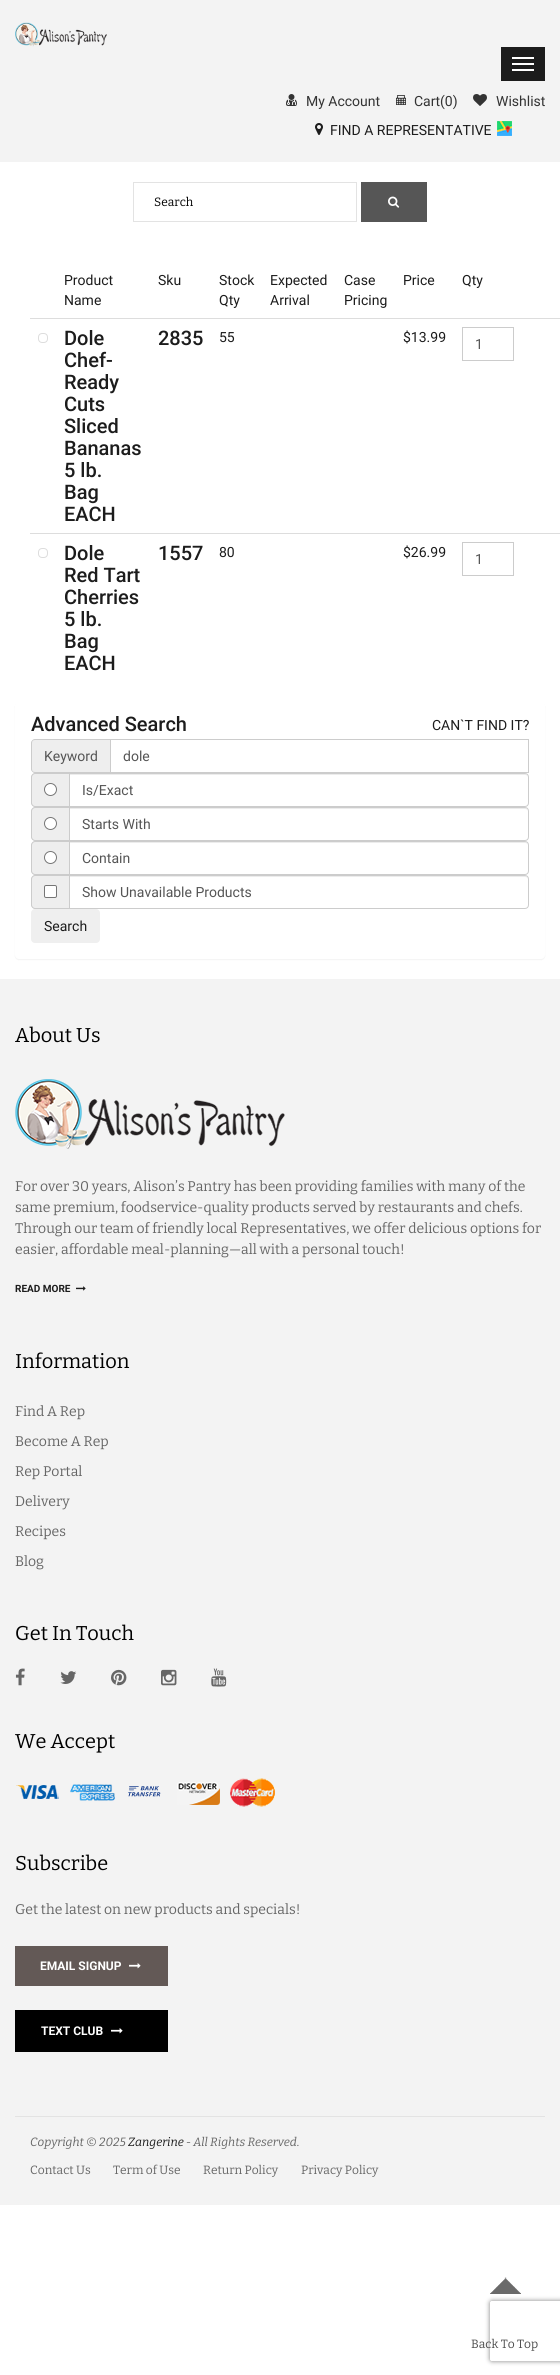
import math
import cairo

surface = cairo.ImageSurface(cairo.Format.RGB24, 560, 2375)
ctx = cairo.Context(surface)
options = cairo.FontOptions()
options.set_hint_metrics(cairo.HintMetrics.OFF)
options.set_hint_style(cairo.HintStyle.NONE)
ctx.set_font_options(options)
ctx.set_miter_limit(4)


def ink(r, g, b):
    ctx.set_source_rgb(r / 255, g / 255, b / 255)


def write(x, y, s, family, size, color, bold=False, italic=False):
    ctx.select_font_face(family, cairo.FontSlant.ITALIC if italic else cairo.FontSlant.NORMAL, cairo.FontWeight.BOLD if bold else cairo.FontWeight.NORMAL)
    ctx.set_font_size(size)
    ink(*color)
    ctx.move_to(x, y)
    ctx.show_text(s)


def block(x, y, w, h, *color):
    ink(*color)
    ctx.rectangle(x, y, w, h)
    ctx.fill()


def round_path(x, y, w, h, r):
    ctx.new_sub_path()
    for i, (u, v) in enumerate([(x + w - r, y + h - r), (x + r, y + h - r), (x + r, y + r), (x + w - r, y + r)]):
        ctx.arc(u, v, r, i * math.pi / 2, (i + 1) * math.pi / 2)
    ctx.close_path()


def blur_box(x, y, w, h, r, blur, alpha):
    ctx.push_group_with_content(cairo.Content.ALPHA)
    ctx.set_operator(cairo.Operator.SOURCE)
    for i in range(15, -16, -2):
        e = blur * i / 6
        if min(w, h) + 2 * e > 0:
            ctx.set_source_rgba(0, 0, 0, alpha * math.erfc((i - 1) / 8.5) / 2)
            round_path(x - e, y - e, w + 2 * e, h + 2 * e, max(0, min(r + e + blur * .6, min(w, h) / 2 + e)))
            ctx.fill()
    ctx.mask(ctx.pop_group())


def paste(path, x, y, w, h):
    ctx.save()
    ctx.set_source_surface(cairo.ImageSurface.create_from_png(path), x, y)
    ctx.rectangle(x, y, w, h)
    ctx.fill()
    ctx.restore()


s1 = dict(family="Roboto", size=14, color=(51, 51, 51))
s2 = dict(family="Roboto", size=14, color=(28, 28, 28))
s3 = dict(family="Bitter", size=12, color=(0, 0, 0))
s4 = dict(family="Roboto Medium", size=20, color=(28, 28, 28))
s5 = dict(family="Roboto", size=14, color=(85, 85, 85))
s6 = dict(family="Bitter", size=20, color=(0, 0, 0))
s7 = dict(family="Bitter", size=14, color=(102, 102, 102))
s8 = dict(family="Roboto", size=10, color=(28, 28, 28), bold=True)
s9 = dict(family="Roboto", size=12, color=(255, 255, 255), bold=True)
s10 = dict(family="Bitter Thin", size=12, color=(102, 102, 102), italic=True)
s11 = dict(family="Bitter Thin", size=12, color=(28, 28, 28), italic=True)
s12 = dict(family="Bitter", size=12, color=(102, 102, 102))
s13 = dict(family="Bitter", size=12, color=(76, 76, 76))

ink(255, 255, 255)
ctx.paint()
block(0, 0, 560, 162, 243, 243, 243)
paste("pic1.png", 15, 22, 92, 25)
block(501, 47, 44, 34, 28, 28, 28)
block(512, 57, 22, 2, 255, 255, 255)
block(512, 63, 22, 2, 255, 255, 255)
block(512, 69, 22, 2, 255, 255, 255)
paste("pic2.png", 286, 94, 11, 12)
write(306, 106, "My Account", **s1)
paste("pic3.png", 396, 95, 10, 10)
write(414, 106, "Cart(0)", **s1)
paste("pic4.png", 473, 94, 14, 12)
write(496, 106, "Wishlist", **s1)
paste("pic5.png", 315, 123, 8, 12)
write(330, 135, "FIND A REPRESENTATIVE", **s2)
paste("pic6.png", 497, 121, 15, 15)
ctx.rectangle(133.5, 182.5, 223, 39)
ink(227, 227, 227)
ctx.set_line_width(1)
ctx.stroke()
write(154, 206, "Search", **s3)
block(361, 182, 66, 40, 86, 86, 86)
paste("pic7.png", 388, 196, 12, 12)
write(64, 285, "Product", **s2)
write(64, 305, "Name", **s2)
write(158, 285, "Sku", **s2)
write(219, 285, "Stock", **s2)
write(219, 305, "Qty", **s2)
write(270, 285, "Expected", **s2)
write(270, 305, "Arrival", **s2)
write(344, 285, "Case", **s2)
write(344, 305, "Pricing", **s2)
write(403, 285, "Price", **s2)
write(462, 285, "Qty", **s2)
round_path(38.5, 333.5, 9, 9, 3.5)
ink(221, 221, 221)
ctx.stroke()
write(64, 345, "Dole", **s4)
write(64, 367, "Chef-", **s4)
write(64, 389, "Ready", **s4)
write(64, 411, "Cuts", **s4)
write(64, 433, "Sliced", **s4)
write(64, 455, "Bananas", **s4)
write(64, 477, "5 lb.", **s4)
write(64, 499, "Bag", **s4)
write(64, 521, "EACH", **s4)
write(158, 345, "2835", **s4)
write(219, 342, "55", **s2)
write(403, 342, "$13.99", **s2)
block(30, 318, 530, 1, 221, 221, 221)
ctx.rectangle(462.5, 327.5, 51, 33)
ink(204, 204, 204)
ctx.stroke()
write(475, 349, "1", **s5)
round_path(38.5, 548.5, 9, 9, 3.5)
ink(221, 221, 221)
ctx.stroke()
write(64, 560, "Dole", **s4)
write(64, 582, "Red Tart", **s4)
write(64, 604, "Cherries", **s4)
write(64, 626, "5 lb.", **s4)
write(64, 648, "Bag", **s4)
write(64, 670, "EACH", **s4)
write(158, 560, "1557", **s4)
write(219, 557, "80", **s2)
write(403, 557, "$26.99", **s2)
block(30, 533, 530, 1, 221, 221, 221)
ctx.rectangle(462.5, 542.5, 51, 33)
ink(204, 204, 204)
ctx.stroke()
write(475, 564, "1", **s5)
ink(0, 0, 0)
blur_box(15, 703, 530, 257, 4, 0.5, 0.05)
ink(255, 255, 255)
round_path(15, 702, 530, 257, 4)
ctx.fill()
write(31, 731, "Advanced Search", **s4)
write(432, 730, "CAN`T FIND IT?", **s2)
ink(238, 238, 238)
ctx.new_path()
ctx.move_to(35, 739)
ctx.line_to(110, 739)
ctx.line_to(110, 773)
ctx.line_to(35, 773)
ctx.curve_to(33, 773, 31, 771, 31, 769)
ctx.line_to(31, 743)
ctx.curve_to(31, 741, 33, 739, 35, 739)
ctx.close_path()
ctx.fill()
ink(204, 204, 204)
ctx.set_fill_rule(cairo.FillRule.EVEN_ODD)
ctx.new_path()
ctx.move_to(35, 739)
ctx.line_to(110, 739)
ctx.line_to(110, 773)
ctx.line_to(35, 773)
ctx.curve_to(33, 773, 31, 771, 31, 769)
ctx.line_to(31, 743)
ctx.curve_to(31, 741, 33, 739, 35, 739)
ctx.close_path()
ctx.move_to(35, 740)
ctx.line_to(110, 740)
ctx.line_to(110, 772)
ctx.line_to(35, 772)
ctx.curve_to(33, 772, 32, 771, 32, 769)
ctx.line_to(32, 743)
ctx.curve_to(32, 741, 33, 740, 35, 740)
ctx.close_path()
ctx.fill()
write(44, 761, "Keyword", **s5)
ctx.rectangle(110.5, 739.5, 418, 33)
ink(204, 204, 204)
ctx.stroke()
write(123, 761, "dole", **s5)
ink(238, 238, 238)
ctx.new_path()
ctx.move_to(35, 773)
ctx.line_to(69, 773)
ctx.line_to(69, 807)
ctx.line_to(35, 807)
ctx.curve_to(33, 807, 31, 805, 31, 803)
ctx.line_to(31, 777)
ctx.curve_to(31, 775, 33, 773, 35, 773)
ctx.close_path()
ctx.fill()
ink(204, 204, 204)
ctx.new_path()
ctx.move_to(35, 773)
ctx.line_to(69, 773)
ctx.line_to(69, 807)
ctx.line_to(35, 807)
ctx.curve_to(33, 807, 31, 805, 31, 803)
ctx.line_to(31, 777)
ctx.curve_to(31, 775, 33, 773, 35, 773)
ctx.close_path()
ctx.move_to(35, 774)
ctx.line_to(69, 774)
ctx.line_to(69, 806)
ctx.line_to(35, 806)
ctx.curve_to(33.5, 806, 32, 804.5, 32, 803)
ctx.line_to(32, 777)
ctx.curve_to(32, 775.5, 33.5, 774, 35, 774)
ctx.close_path()
ctx.fill()
ink(255, 255, 255)
ctx.arc(50.5, 789.5, 6, 0, 2 * math.pi)
ctx.fill_preserve()
ink(118, 118, 118)
ctx.stroke()
ink(236, 236, 236)
ctx.set_fill_rule(cairo.FillRule.WINDING)
ctx.new_path()
ctx.move_to(70, 775)
ctx.line_to(525, 775)
ctx.curve_to(527, 775, 528, 776, 528, 778)
ctx.curve_to(528, 776, 527, 774, 525, 774)
ctx.line_to(70, 774)
ctx.close_path()
ctx.fill()
ctx.new_path()
ctx.move_to(69.5, 773.5)
ctx.line_to(525, 773.5)
ctx.curve_to(527, 773.5, 528.5, 775, 528.5, 777)
ctx.line_to(528.5, 803)
ctx.curve_to(528.5, 805, 527, 806.5, 525, 806.5)
ctx.line_to(69.5, 806.5)
ctx.close_path()
ink(204, 204, 204)
ctx.stroke()
write(82, 795, "Is/Exact", **s5)
ink(238, 238, 238)
ctx.new_path()
ctx.move_to(35, 807)
ctx.line_to(69, 807)
ctx.line_to(69, 841)
ctx.line_to(35, 841)
ctx.curve_to(33, 841, 31, 839, 31, 837)
ctx.line_to(31, 811)
ctx.curve_to(31, 809, 33, 807, 35, 807)
ctx.close_path()
ctx.fill()
ink(204, 204, 204)
ctx.set_fill_rule(cairo.FillRule.EVEN_ODD)
ctx.new_path()
ctx.move_to(35, 807)
ctx.line_to(69, 807)
ctx.line_to(69, 841)
ctx.line_to(35, 841)
ctx.curve_to(33, 841, 31, 839, 31, 837)
ctx.line_to(31, 811)
ctx.curve_to(31, 809, 33, 807, 35, 807)
ctx.close_path()
ctx.move_to(35, 808)
ctx.line_to(69, 808)
ctx.line_to(69, 840)
ctx.line_to(35, 840)
ctx.curve_to(33.5, 840, 32, 838.5, 32, 837)
ctx.line_to(32, 811)
ctx.curve_to(32, 809.5, 33.5, 808, 35, 808)
ctx.close_path()
ctx.fill()
ink(255, 255, 255)
ctx.arc(50.5, 823.5, 6, 0, 2 * math.pi)
ctx.fill_preserve()
ink(118, 118, 118)
ctx.stroke()
ink(236, 236, 236)
ctx.set_fill_rule(cairo.FillRule.WINDING)
ctx.new_path()
ctx.move_to(70, 809)
ctx.line_to(525, 809)
ctx.curve_to(527, 809, 528, 810, 528, 812)
ctx.curve_to(528, 810, 527, 808, 525, 808)
ctx.line_to(70, 808)
ctx.close_path()
ctx.fill()
ctx.new_path()
ctx.move_to(69.5, 807.5)
ctx.line_to(525, 807.5)
ctx.curve_to(527, 807.5, 528.5, 809, 528.5, 811)
ctx.line_to(528.5, 837)
ctx.curve_to(528.5, 839, 527, 840.5, 525, 840.5)
ctx.line_to(69.5, 840.5)
ctx.close_path()
ink(204, 204, 204)
ctx.stroke()
write(82, 829, "Starts With", **s5)
ink(238, 238, 238)
ctx.new_path()
ctx.move_to(35, 841)
ctx.line_to(69, 841)
ctx.line_to(69, 875)
ctx.line_to(35, 875)
ctx.curve_to(33, 875, 31, 873, 31, 871)
ctx.line_to(31, 845)
ctx.curve_to(31, 843, 33, 841, 35, 841)
ctx.close_path()
ctx.fill()
ink(204, 204, 204)
ctx.set_fill_rule(cairo.FillRule.EVEN_ODD)
ctx.new_path()
ctx.move_to(35, 841)
ctx.line_to(69, 841)
ctx.line_to(69, 875)
ctx.line_to(35, 875)
ctx.curve_to(33, 875, 31, 873, 31, 871)
ctx.line_to(31, 845)
ctx.curve_to(31, 843, 33, 841, 35, 841)
ctx.close_path()
ctx.move_to(35, 842)
ctx.line_to(69, 842)
ctx.line_to(69, 874)
ctx.line_to(35, 874)
ctx.curve_to(33.5, 874, 32, 872.5, 32, 871)
ctx.line_to(32, 845)
ctx.curve_to(32, 843.5, 33.5, 842, 35, 842)
ctx.close_path()
ctx.fill()
ink(255, 255, 255)
ctx.arc(50.5, 857.5, 6, 0, 2 * math.pi)
ctx.fill_preserve()
ink(118, 118, 118)
ctx.stroke()
ink(236, 236, 236)
ctx.set_fill_rule(cairo.FillRule.WINDING)
ctx.new_path()
ctx.move_to(70, 843)
ctx.line_to(525, 843)
ctx.curve_to(527, 843, 528, 844, 528, 846)
ctx.curve_to(528, 844, 527, 842, 525, 842)
ctx.line_to(70, 842)
ctx.close_path()
ctx.fill()
ctx.new_path()
ctx.move_to(69.5, 841.5)
ctx.line_to(525, 841.5)
ctx.curve_to(527, 841.5, 528.5, 843, 528.5, 845)
ctx.line_to(528.5, 871)
ctx.curve_to(528.5, 873, 527, 874.5, 525, 874.5)
ctx.line_to(69.5, 874.5)
ctx.close_path()
ink(204, 204, 204)
ctx.stroke()
write(82, 863, "Contain", **s5)
ink(238, 238, 238)
ctx.new_path()
ctx.move_to(35, 875)
ctx.line_to(69, 875)
ctx.line_to(69, 909)
ctx.line_to(35, 909)
ctx.curve_to(33, 909, 31, 907, 31, 905)
ctx.line_to(31, 879)
ctx.curve_to(31, 877, 33, 875, 35, 875)
ctx.close_path()
ctx.fill()
ink(204, 204, 204)
ctx.set_fill_rule(cairo.FillRule.EVEN_ODD)
ctx.new_path()
ctx.move_to(35, 875)
ctx.line_to(69, 875)
ctx.line_to(69, 909)
ctx.line_to(35, 909)
ctx.curve_to(33, 909, 31, 907, 31, 905)
ctx.line_to(31, 879)
ctx.curve_to(31, 877, 33, 875, 35, 875)
ctx.close_path()
ctx.move_to(35, 876)
ctx.line_to(69, 876)
ctx.line_to(69, 908)
ctx.line_to(35, 908)
ctx.curve_to(33.5, 908, 32, 906.5, 32, 905)
ctx.line_to(32, 879)
ctx.curve_to(32, 877.5, 33.5, 876, 35, 876)
ctx.close_path()
ctx.fill()
ink(255, 255, 255)
round_path(44.5, 885.5, 12, 12, 1.5)
ctx.fill_preserve()
ink(118, 118, 118)
ctx.stroke()
ink(236, 236, 236)
ctx.set_fill_rule(cairo.FillRule.WINDING)
ctx.new_path()
ctx.move_to(70, 877)
ctx.line_to(525, 877)
ctx.curve_to(527, 877, 528, 878, 528, 880)
ctx.curve_to(528, 878, 527, 876, 525, 876)
ctx.line_to(70, 876)
ctx.close_path()
ctx.fill()
ctx.new_path()
ctx.move_to(69.5, 875.5)
ctx.line_to(525, 875.5)
ctx.curve_to(527, 875.5, 528.5, 877, 528.5, 879)
ctx.line_to(528.5, 905)
ctx.curve_to(528.5, 907, 527, 908.5, 525, 908.5)
ctx.line_to(69.5, 908.5)
ctx.close_path()
ink(204, 204, 204)
ctx.stroke()
write(82, 897, "Show Unavailable Products", **s5)
ink(239, 239, 239)
round_path(31, 909, 69, 34, 4)
ctx.fill()
write(44, 931, "Search", **s2)
block(0, 979, 560, 1226, 243, 243, 243)
write(15, 1042, "About Us", **s6)
paste("pic8.png", 15, 1079, 270, 70)
write(15, 1191, "For over 30 years, Alison’s Pantry has been providing families with many of the", **s7)
write(15, 1212, "same premium, foodservice-quality products served by restaurants and chefs.", **s7)
write(15, 1233, "Through our team of friendly local Representatives, we offer delicious options for", **s7)
write(15, 1254, "easier, affordable meal-planning—all with a personal touch!", **s7)
write(15, 1292, "READ MORE", **s8)
paste("pic9.png", 76, 1286, 10, 5)
write(15, 1368, "Information", **s6)
write(15, 1416, "Find A Rep", **s7)
write(15, 1446, "Become A Rep", **s7)
write(15, 1476, "Rep Portal", **s7)
write(15, 1506, "Delivery", **s7)
write(15, 1536, "Recipes", **s7)
write(15, 1566, "Blog", **s7)
write(15, 1640, "Get In Touch", **s6)
paste("pic10.png", 15, 1668, 10, 18)
paste("pic11.png", 60, 1671, 17, 13)
paste("pic12.png", 111, 1669, 16, 17)
paste("pic13.png", 161, 1669, 16, 17)
paste("pic14.png", 211, 1668, 16, 19)
write(15, 1748, "We Accept", **s6)
paste("pic15.png", 16, 1785, 43, 14)
paste("pic16.png", 70, 1784, 45, 17)
paste("pic17.png", 128, 1786, 33, 11)
paste("pic18.png", 177, 1782, 43, 23)
paste("pic19.png", 230, 1778, 45, 29)
write(15, 1870, "Subscribe", **s6)
write(15, 1914, "Get the latest on new products and specials!", **s7)
block(15, 1946, 153, 40, 99, 89, 86)
write(40, 1970, "EMAIL SIGNUP", **s9)
paste("pic20.png", 129, 1963, 12, 6)
block(15, 2010, 153, 42, 0, 0, 0)
write(41, 2035, "TEXT CLUB", **s9)
paste("pic21.png", 111, 2028, 12, 6)
block(15, 2116, 530, 1, 227, 227, 227)
write(30, 2146, "Copyright © 2025", **s10)
write(128, 2146, "Zangerine", **s11)
write(186, 2146, "- All Rights Reserved.", **s10)
write(30, 2174, "Contact Us", **s12)
write(113, 2174, "Term of Use", **s12)
write(203, 2174, "Return Policy", **s12)
write(301, 2174, "Privacy Policy", **s12)
ctx.save()
ctx.set_fill_rule(cairo.FillRule.EVEN_ODD)
ctx.new_path()
ctx.move_to(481, 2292)
ctx.line_to(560, 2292)
ctx.line_to(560, 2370)
ctx.line_to(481, 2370)
ctx.close_path()
ctx.move_to(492, 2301)
ctx.line_to(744, 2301)
ctx.curve_to(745, 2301, 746, 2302, 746, 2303)
ctx.line_to(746, 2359)
ctx.curve_to(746, 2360, 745, 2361, 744, 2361)
ctx.line_to(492, 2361)
ctx.curve_to(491, 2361, 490, 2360, 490, 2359)
ctx.line_to(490, 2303)
ctx.curve_to(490, 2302, 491, 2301, 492, 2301)
ctx.close_path()
ctx.clip()
ink(128, 128, 128)
blur_box(490, 2301, 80, 60, 2, 2.5, 1)
ctx.restore()
paste("pic22.png", 490, 2277, 31, 17)
write(471, 2348, "Back To Top", **s13)
surface.write_to_png("screenshot.png")
